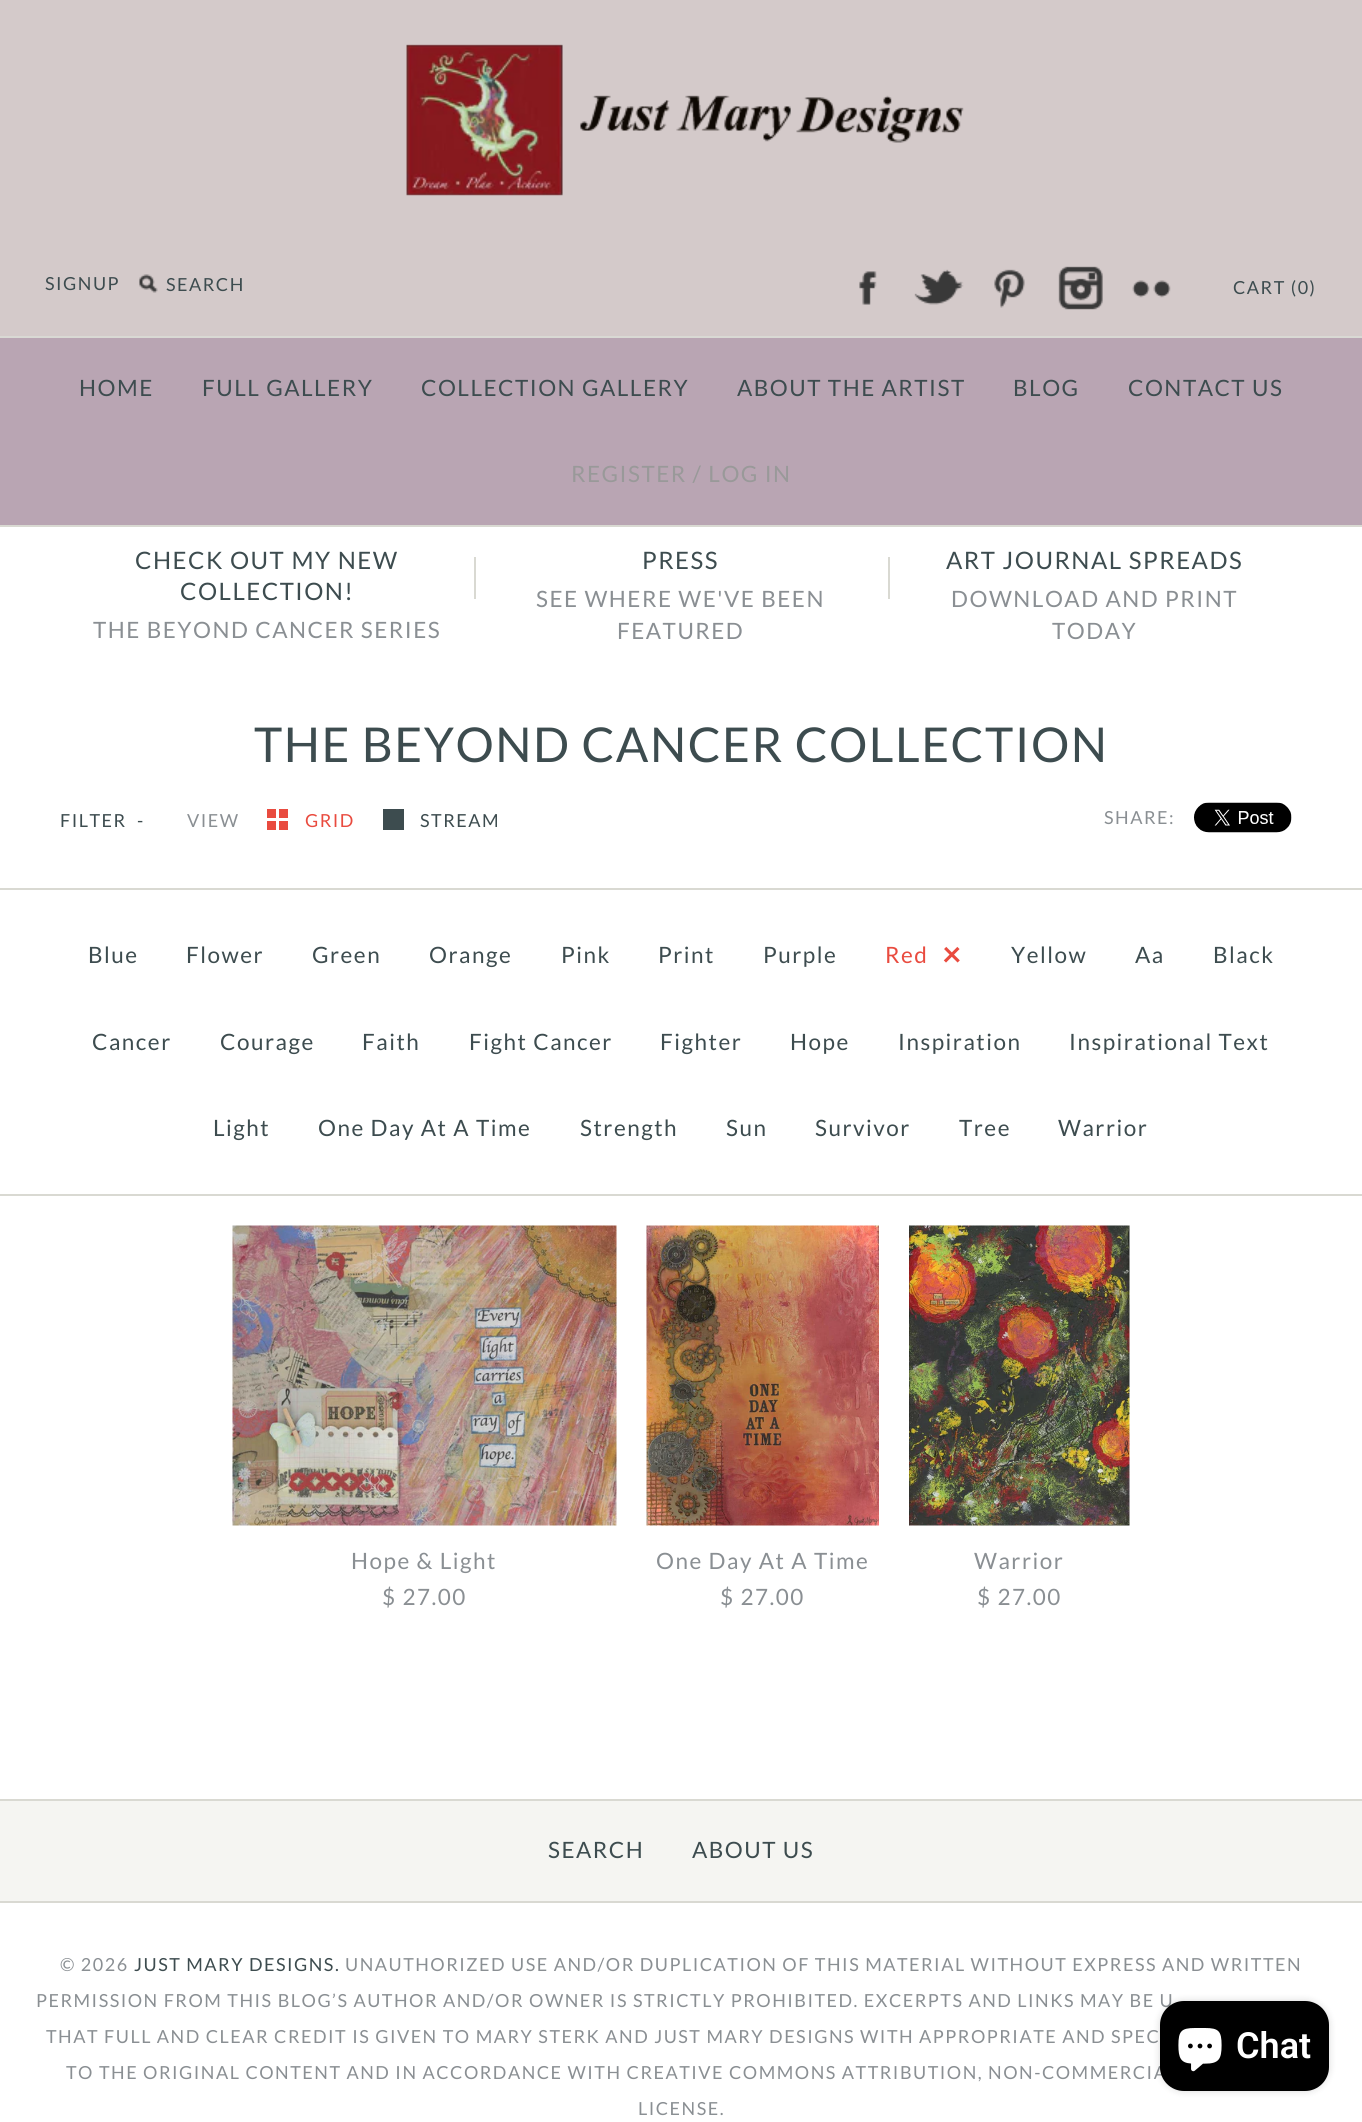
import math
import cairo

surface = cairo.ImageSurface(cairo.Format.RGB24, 1362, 2122)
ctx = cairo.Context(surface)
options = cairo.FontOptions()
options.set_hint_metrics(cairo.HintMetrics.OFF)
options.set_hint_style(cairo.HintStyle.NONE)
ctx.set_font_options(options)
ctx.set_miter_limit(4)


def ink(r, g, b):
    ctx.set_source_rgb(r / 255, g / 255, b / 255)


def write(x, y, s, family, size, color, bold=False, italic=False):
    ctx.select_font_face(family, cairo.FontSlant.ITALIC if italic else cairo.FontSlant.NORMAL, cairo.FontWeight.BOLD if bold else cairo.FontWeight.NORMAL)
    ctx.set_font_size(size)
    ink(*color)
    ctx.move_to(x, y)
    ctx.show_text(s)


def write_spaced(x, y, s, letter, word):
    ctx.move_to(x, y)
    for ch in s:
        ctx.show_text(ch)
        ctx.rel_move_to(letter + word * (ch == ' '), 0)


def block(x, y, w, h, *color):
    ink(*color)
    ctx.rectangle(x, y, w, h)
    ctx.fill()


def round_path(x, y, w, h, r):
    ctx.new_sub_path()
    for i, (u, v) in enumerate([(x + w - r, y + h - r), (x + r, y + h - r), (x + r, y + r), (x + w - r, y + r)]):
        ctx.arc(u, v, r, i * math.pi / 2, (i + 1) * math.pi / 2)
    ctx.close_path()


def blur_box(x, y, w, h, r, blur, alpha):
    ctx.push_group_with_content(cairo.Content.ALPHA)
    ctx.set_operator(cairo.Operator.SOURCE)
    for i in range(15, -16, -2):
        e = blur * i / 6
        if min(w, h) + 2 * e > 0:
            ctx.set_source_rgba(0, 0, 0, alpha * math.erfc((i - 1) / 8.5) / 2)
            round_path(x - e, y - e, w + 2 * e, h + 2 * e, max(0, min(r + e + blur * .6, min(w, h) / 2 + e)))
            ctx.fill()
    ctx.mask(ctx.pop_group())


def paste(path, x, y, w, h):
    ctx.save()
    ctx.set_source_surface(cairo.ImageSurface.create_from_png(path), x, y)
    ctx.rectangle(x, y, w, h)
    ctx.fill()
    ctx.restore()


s1 = dict(family="Roboto SemiBold", size=36, color=(255, 255, 255))

ink(255, 255, 255)
ctx.paint()
block(0, 0, 1362, 336, 212, 202, 202)
paste("pic1.png", 406, 44, 558, 152)
ctx.select_font_face("Lato")
ctx.set_font_size(18)
ink(61, 76, 79)
write_spaced(45, 290, "SIGNUP", 1.5, 0)
paste("pic2.png", 139, 274, 19, 19)
write_spaced(166, 291, "SEARCH", 1.5, 0)
paste("pic3.png", 859, 271, 18, 34)
paste("pic4.png", 914, 269, 50, 36)
paste("pic5.png", 994, 269, 31, 39)
paste("pic6.png", 1058, 266, 45, 44)
paste("pic7.png", 1132, 280, 39, 18)
write_spaced(1233, 294, "CART (0)", 1.5, 0)
block(0, 525, 1362, 2, 217, 217, 210)
block(0, 338, 1362, 187, 185, 165, 179)
block(0, 336, 1362, 2, 217, 217, 212)
ctx.set_font_size(22.5)
ink(61, 76, 79)
write_spaced(79, 396, "HOME", 1.5, 0)
write_spaced(202, 396, "FULL GALLERY", 1.5, 0)
write_spaced(421, 396, "COLLECTION GALLERY", 1.5, 0)
write_spaced(737, 396, "ABOUT THE ARTIST", 1.5, 0)
write_spaced(1013, 396, "BLOG", 1.5, 0)
write_spaced(1128, 396, "CONTACT US", 1.5, 0)
ink(153, 153, 153)
write_spaced(571, 482, "REGISTER / LOG IN", 1.5, 0)
ctx.set_font_size(24)
ink(61, 76, 79)
write_spaced(135, 569, "CHECK OUT MY NEW", 1.5, 0)
write_spaced(180, 600, "COLLECTION!", 1.5, 0)
ctx.set_font_size(22.5)
ink(138, 143, 147)
write_spaced(93, 638, "THE BEYOND CANCER SERIES", 1.5, 0)
block(474, 557, 2, 42, 217, 217, 210)
ctx.set_font_size(24)
ink(61, 76, 79)
write_spaced(642, 569, "PRESS", 1.5, 0)
ctx.set_font_size(22.5)
ink(138, 143, 147)
write_spaced(536, 607, "SEE WHERE WE'VE BEEN", 1.5, 0)
write_spaced(617, 639, "FEATURED", 1.5, 0)
block(888, 557, 2, 42, 217, 217, 210)
ctx.set_font_size(24)
ink(61, 76, 79)
write_spaced(946, 569, "ART JOURNAL SPREADS", 1.5, 0)
ctx.set_font_size(22.5)
ink(138, 143, 147)
write_spaced(951, 607, "DOWNLOAD AND PRINT", 1.5, 0)
write_spaced(1052, 639, "TODAY", 1.5, 0)
ctx.set_font_size(48)
ink(61, 76, 79)
write_spaced(254, 762, "THE BEYOND CANCER COLLECTION", 1.5, 0)
ctx.set_font_size(18)
write_spaced(60, 827, "FILTER", 1.5, 0)
write_spaced(137, 827, "-", 1.5, 0)
ink(138, 143, 147)
write_spaced(187, 827, "VIEW", 1.5, 0)
block(267, 809, 9, 9, 233, 75, 63)
block(279, 809, 9, 9, 233, 75, 63)
write_spaced(305, 827, "GRID", 1.5, 0)
block(267, 821, 9, 9, 233, 75, 63)
block(279, 821, 9, 9, 233, 75, 63)
block(383, 809, 21, 21, 61, 76, 79)
write_spaced(420, 827, "STREAM", 1.5, 0)
ink(138, 143, 147)
write_spaced(1104, 824, "SHARE:", 1.5, 0)
paste("pic8.png", 1194, 802, 98, 31)
block(0, 888, 1362, 2, 217, 217, 210)
block(0, 1194, 1362, 2, 217, 217, 210)
ctx.set_font_size(22.5)
ink(61, 76, 79)
write_spaced(88, 963, "Blue", 1.5, 0)
write_spaced(186, 963, "Flower", 1.5, 0)
write_spaced(312, 963, "Green", 1.5, 0)
write_spaced(429, 963, "Orange", 1.5, 0)
write_spaced(561, 963, "Pink", 1.5, 0)
write_spaced(658, 963, "Print", 1.5, 0)
write_spaced(763, 963, "Purple", 1.5, 0)
ink(233, 75, 63)
write_spaced(885, 963, "Red", 1.5, 0)
ctx.select_font_face("Lato", cairo.FontSlant.NORMAL, cairo.FontWeight.BOLD)
ctx.set_font_size(34)
write_spaced(942, 966, "×", 1.5, 0)
ctx.select_font_face("Lato")
ctx.set_font_size(22.5)
ink(61, 76, 79)
write_spaced(1011, 963, "Yellow", 1.5, 0)
write_spaced(1135, 963, "Aa", 1.5, 0)
write_spaced(1213, 963, "Black", 1.5, 0)
write_spaced(92, 1050, "Cancer", 1.5, 0)
write_spaced(220, 1050, "Courage", 1.5, 0)
write_spaced(362, 1050, "Faith", 1.5, 0)
write_spaced(469, 1050, "Fight Cancer", 1.5, 0)
write_spaced(660, 1050, "Fighter", 1.5, 0)
write_spaced(790, 1050, "Hope", 1.5, 0)
write_spaced(898, 1050, "Inspiration", 1.5, 0)
write_spaced(1069, 1050, "Inspirational Text", 1.5, 0)
write_spaced(213, 1136, "Light", 1.5, 0)
write_spaced(318, 1136, "One Day At A Time", 1.5, 0)
write_spaced(580, 1136, "Strength", 1.5, 0)
write_spaced(726, 1136, "Sun", 1.5, 0)
write_spaced(815, 1136, "Survivor", 1.5, 0)
write_spaced(959, 1136, "Tree", 1.5, 0)
write_spaced(1058, 1136, "Warrior", 1.5, 0)
paste("pic9.png", 232, 1225, 385, 301)
ink(138, 143, 147)
write_spaced(351, 1569, "Hope & Light", 1.5, 0)
write_spaced(382, 1605, "$ 27.00", 1.5, 0)
paste("pic10.png", 646, 1225, 233, 301)
write_spaced(656, 1569, "One Day At A Time", 1.5, 0)
write_spaced(720, 1605, "$ 27.00", 1.5, 0)
paste("pic11.png", 909, 1225, 221, 301)
write_spaced(974, 1569, "Warrior", 1.5, 0)
write_spaced(977, 1605, "$ 27.00", 1.5, 0)
block(0, 1801, 1362, 100, 245, 245, 242)
block(0, 1799, 1362, 2, 217, 217, 210)
block(0, 1901, 1362, 2, 217, 217, 210)
ink(61, 76, 79)
write_spaced(548, 1858, "SEARCH", 1.5, 0)
write_spaced(692, 1858, "ABOUT US", 1.5, 0)
ctx.set_font_size(18)
ink(138, 143, 147)
write_spaced(60, 1971, "© 2026", 1.5, 0)
ink(61, 76, 79)
write_spaced(134, 1971, "JUST MARY DESIGNS.", 1.5, 0)
ink(138, 143, 147)
write_spaced(345, 1971, "UNAUTHORIZED USE AND/OR DUPLICATION OF THIS MATERIAL WITHOUT EXPRESS AND WRITTEN", 1.5, 0)
write_spaced(36, 2007, "PERMISSION FROM THIS BLOG’S AUTHOR AND/OR OWNER IS STRICTLY PROHIBITED. EXCERPTS AND LINKS MAY BE U", 1.5, 0)
write_spaced(46, 2043, "THAT FULL AND CLEAR CREDIT IS GIVEN TO MARY STERK AND JUST MARY DESIGNS WITH APPROPRIATE AND SPEC", 1.5, 0)
write_spaced(66, 2079, "TO THE ORIGINAL CONTENT AND IN ACCORDANCE WITH CREATIVE COMMONS ATTRIBUTION, NON-COMMERCIA", 1.5, 0)
write_spaced(638, 2115, "LICENSE.", 1.5, 0)
ink(0, 0, 0)
blur_box(1160, 2001, 169, 90, 24, 4, 0.15)
ink(0, 0, 0)
round_path(1160, 2001, 169, 90, 24)
ctx.fill()
paste("pic12.png", 1178, 2028, 44, 44)
write(1236, 2058, "Chat", **s1)
surface.write_to_png("screenshot.png")
